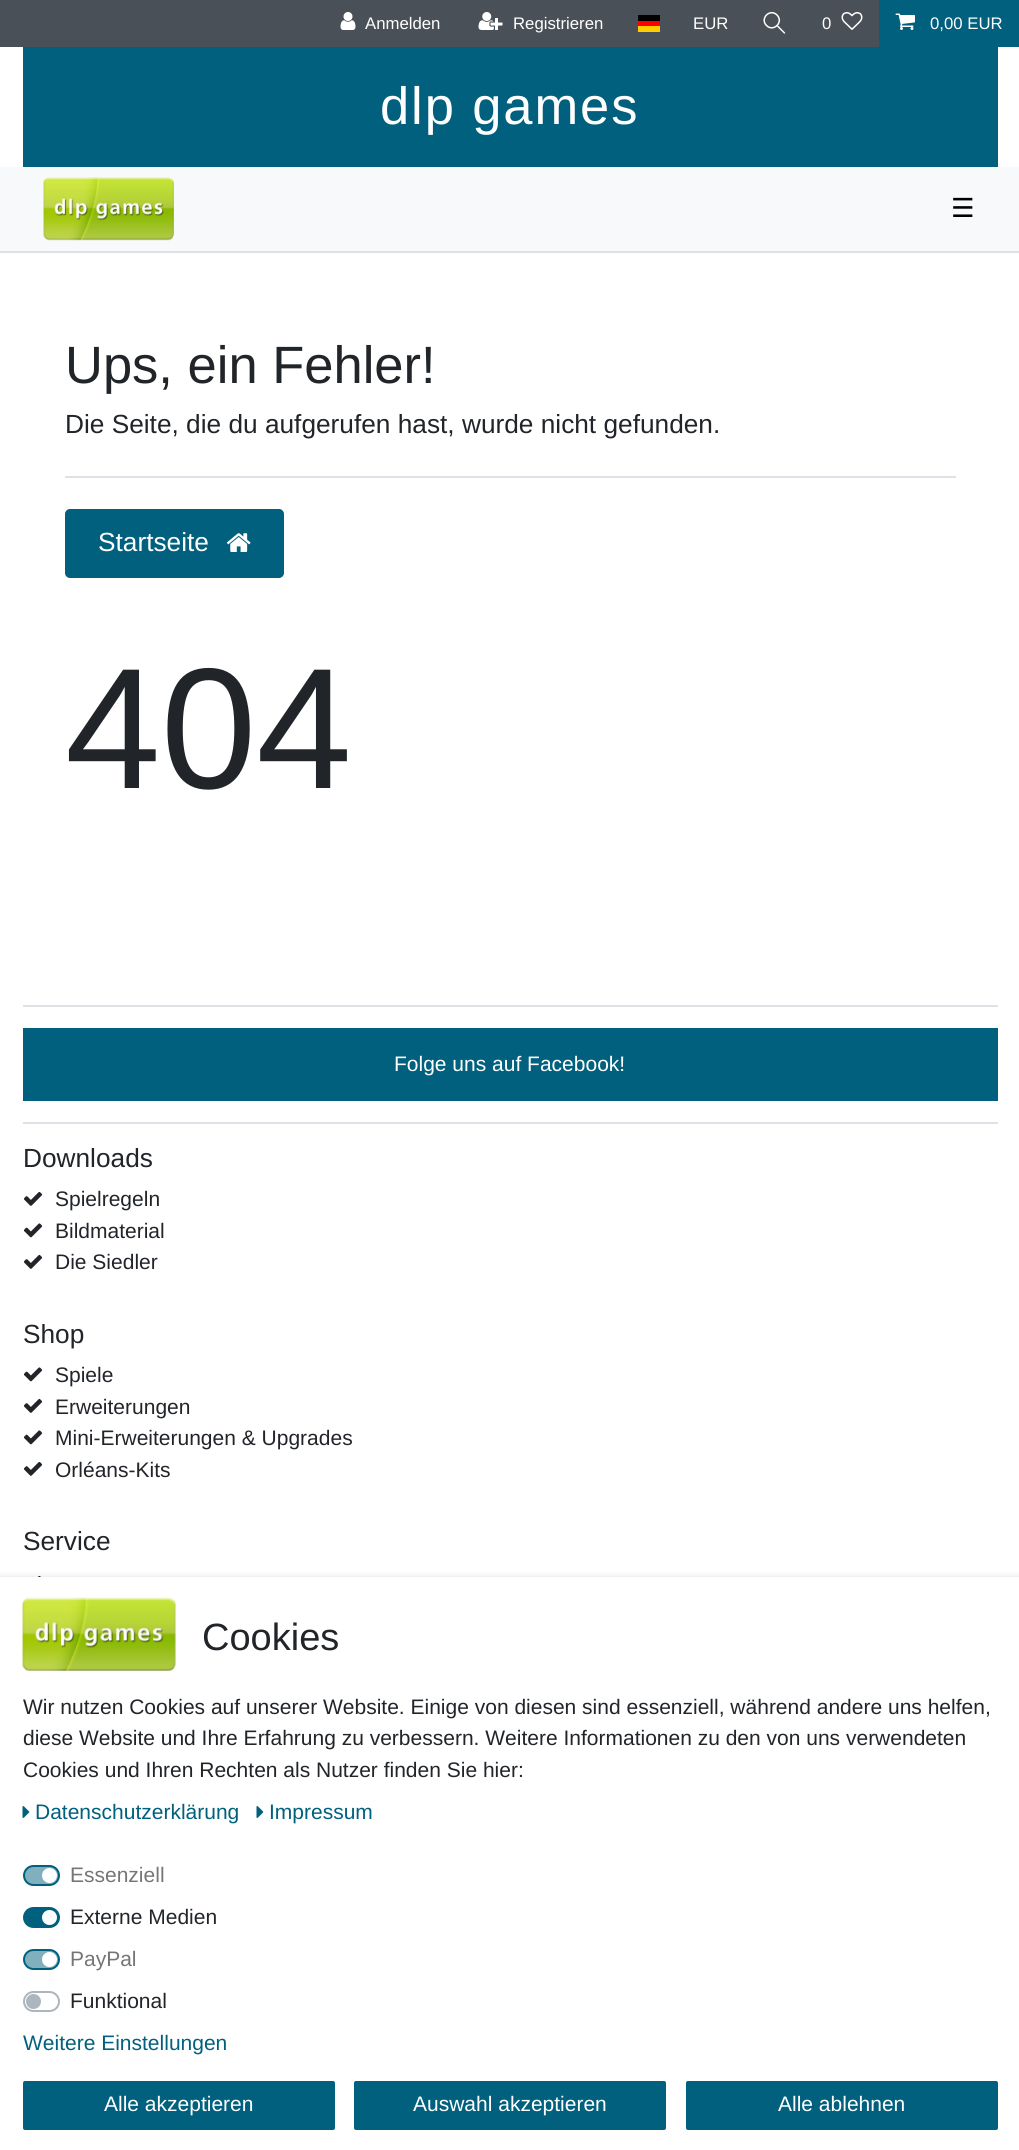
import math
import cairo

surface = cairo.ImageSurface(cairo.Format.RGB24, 1019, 2150)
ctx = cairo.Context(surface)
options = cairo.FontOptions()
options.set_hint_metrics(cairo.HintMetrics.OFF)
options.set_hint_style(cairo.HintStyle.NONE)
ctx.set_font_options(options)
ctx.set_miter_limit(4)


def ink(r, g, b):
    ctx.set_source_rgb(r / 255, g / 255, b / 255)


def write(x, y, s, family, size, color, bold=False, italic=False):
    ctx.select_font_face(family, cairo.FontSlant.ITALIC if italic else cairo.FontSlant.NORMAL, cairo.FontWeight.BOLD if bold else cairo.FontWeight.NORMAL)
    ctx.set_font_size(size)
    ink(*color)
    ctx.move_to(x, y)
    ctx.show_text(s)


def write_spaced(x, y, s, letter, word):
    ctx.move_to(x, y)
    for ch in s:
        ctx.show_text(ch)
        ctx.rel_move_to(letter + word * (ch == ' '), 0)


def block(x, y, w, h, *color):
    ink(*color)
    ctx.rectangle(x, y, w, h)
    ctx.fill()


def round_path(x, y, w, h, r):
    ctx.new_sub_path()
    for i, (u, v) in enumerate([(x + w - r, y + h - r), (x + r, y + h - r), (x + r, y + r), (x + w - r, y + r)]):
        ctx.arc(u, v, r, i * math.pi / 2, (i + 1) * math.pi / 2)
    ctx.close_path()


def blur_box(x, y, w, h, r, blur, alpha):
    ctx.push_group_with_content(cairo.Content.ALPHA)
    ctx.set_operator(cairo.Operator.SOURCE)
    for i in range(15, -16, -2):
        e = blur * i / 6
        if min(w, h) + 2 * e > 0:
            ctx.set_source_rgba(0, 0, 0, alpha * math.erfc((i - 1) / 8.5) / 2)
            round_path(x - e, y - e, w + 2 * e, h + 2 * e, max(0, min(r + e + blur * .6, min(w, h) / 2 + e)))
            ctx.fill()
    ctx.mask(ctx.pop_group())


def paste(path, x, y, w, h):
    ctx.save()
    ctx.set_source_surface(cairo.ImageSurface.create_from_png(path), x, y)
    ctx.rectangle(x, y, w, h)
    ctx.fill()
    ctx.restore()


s1 = dict(family="Liberation Sans", size=16.75, color=(255, 255, 255))
s2 = dict(family="DejaVu Sans", size=26.25, color=(0, 0, 0))
s3 = dict(family="Liberation Sans", size=52.5, color=(33, 37, 41))
s4 = dict(family="Liberation Sans", size=26.25, color=(33, 37, 41))
s5 = dict(family="Liberation Sans", size=26.25, color=(255, 255, 255))
s6 = dict(family="Liberation Sans", size=172, color=(33, 37, 41))
s7 = dict(family="Liberation Sans", size=21, color=(255, 255, 255))
s8 = dict(family="Liberation Sans", size=21, color=(33, 37, 41))
s9 = dict(family="Liberation Sans", size=38, color=(33, 37, 41))
s10 = dict(family="Liberation Sans", size=21, color=(0, 96, 125))
s11 = dict(family="Liberation Sans", size=21, color=(118, 118, 118))

ink(255, 255, 255)
ctx.paint()
block(0, 0, 879, 47, 73, 80, 87)
paste("pic1.png", 340, 12, 16, 18)
write(365, 29, "Anmelden", **s1)
paste("pic2.png", 478, 12, 25, 18)
write(513, 29, "Registrieren", **s1)
block(638, 26, 22, 6, 255, 204, 0)
block(638, 15, 22, 6, 0, 0, 0)
block(638, 21, 22, 5, 255, 0, 0)
write(693, 29, "EUR", **s1)
ctx.new_path()
ctx.move_to(784, 33.5)
ctx.line_to(769, 18.5)
ctx.line_to(769, 18)
ctx.curve_to(769, 17.5, 769.5, 17.5, 770, 17.5)
ctx.line_to(785, 32.5)
ctx.curve_to(785.5, 33.5, 784.5, 34, 784, 33.5)
ctx.close_path()
ctx.fill()
ink(73, 80, 87)
ctx.new_path()
ctx.move_to(766, 26)
ctx.curve_to(758.5, 18.5, 770, 7, 777.5, 14.5)
ctx.curve_to(785, 22, 773.5, 34, 766, 26)
ctx.close_path()
ctx.fill()
ctx.new_path()
ctx.move_to(766.5, 25.5)
ctx.curve_to(759.5, 18.5, 770, 8, 777, 15)
ctx.curve_to(784, 22, 773.5, 32.5, 766.5, 25.5)
ctx.close_path()
ink(255, 255, 255)
ctx.set_line_width(1.5)
ctx.stroke()
write(822, 29, "0", **s1)
paste("pic3.png", 841, 12, 22, 18)
block(879, 0, 140, 47, 0, 96, 125)
paste("pic4.png", 895, 13, 20, 17)
write(930, 29, "0,00 EUR", **s1)
block(23, 47, 975, 120, 0, 96, 125)
ctx.set_font_size(52.5)
ink(255, 255, 255)
write_spaced(380, 124, "dlp games", 1.9, 0)
block(0, 167, 1019, 84, 248, 249, 250)
block(0, 251, 1019, 2, 222, 226, 230)
paste("pic5.png", 43, 177, 131, 64)
write(951, 217, "☰", **s2)
write(65, 383, "Ups, ein Fehler!", **s3)
write(65, 433, "Die Seite, die du aufgerufen hast, wurde nicht gefunden.", **s4)
block(65, 476, 891, 2, 222, 226, 230)
ink(0, 96, 125)
round_path(66, 510, 217, 67, 4)
ctx.fill_preserve()
ctx.set_line_width(2)
ctx.stroke()
write(98, 551, "Startseite", **s5)
paste("pic6.png", 226, 533, 25, 19)
write(65, 788, "404", **s6)
block(23, 1005, 975, 2, 222, 226, 230)
block(23, 1028, 975, 73, 0, 96, 125)
write(394, 1071, "Folge uns auf Facebook!", **s7)
block(23, 1122, 975, 2, 222, 226, 230)
write(23, 1167, "Downloads", **s4)
paste("pic7.png", 23, 1191, 20, 15)
write(55, 1206, "Spielregeln", **s8)
paste("pic8.png", 23, 1223, 20, 15)
write(55, 1238, "Bildmaterial", **s8)
paste("pic7.png", 23, 1254, 20, 15)
write(55, 1269, "Die Siedler", **s8)
write(23, 1343, "Shop", **s4)
paste("pic8.png", 23, 1367, 20, 15)
write(55, 1382, "Spiele", **s8)
paste("pic7.png", 23, 1398, 20, 15)
write(55, 1414, "Erweiterungen", **s8)
paste("pic8.png", 23, 1430, 20, 15)
write(55, 1445, "Mini-Erweiterungen & Upgrades", **s8)
paste("pic7.png", 23, 1461, 20, 15)
write(55, 1477, "Orléans-Kits", **s8)
write(23, 1550, "Service", **s4)
paste("pic9.png", 38, 1575, 3, 2)
ink(0, 0, 0)
blur_box(0, 1578, 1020, 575, 0, 4, 0.15)
block(0, 1577, 1019, 573, 255, 255, 255)
paste("pic10.png", 22, 1597, 154, 74)
write(202, 1650, "Cookies", **s9)
write(23, 1714, "Wir nutzen Cookies auf unserer Website. Einige von diesen sind essenziell, während andere uns helfen,", **s8)
write(23, 1745, "diese Website und Ihre Erfahrung zu verbessern. Weitere Informationen zu den von uns verwendeten", **s8)
write(23, 1777, "Cookies und Ihren Rechten als Nutzer finden Sie hier:", **s8)
paste("pic11.png", 22, 1806, 8, 12)
write(35, 1819, "Datenschutzerklärung", **s10)
paste("pic11.png", 256, 1806, 8, 12)
write(269, 1819, "Impressum", **s10)
ink(128, 176, 190)
round_path(24, 1866, 35, 19, 9.5)
ctx.fill_preserve()
ink(0, 96, 125)
ctx.stroke()
write(70, 1882, "Essenziell", **s11)
ink(255, 255, 255)
ctx.new_path()
ctx.arc(49.5, 1875.5, 7.5, 0, 2 * math.pi)
ctx.fill()
ink(0, 96, 125)
round_path(24, 1908, 35, 19, 9.5)
ctx.fill_preserve()
ctx.stroke()
write(70, 1924, "Externe Medien", **s8)
ink(255, 255, 255)
ctx.new_path()
ctx.arc(49.5, 1917.5, 7.5, 0, 2 * math.pi)
ctx.fill()
ink(128, 176, 190)
round_path(24, 1950, 35, 19, 9.5)
ctx.fill_preserve()
ink(0, 96, 125)
ctx.stroke()
write(70, 1966, "PayPal", **s11)
ink(255, 255, 255)
ctx.new_path()
ctx.arc(49.5, 1959.5, 7.5, 0, 2 * math.pi)
ctx.fill()
round_path(24, 1992, 35, 19, 9.5)
ink(173, 181, 189)
ctx.stroke()
write(70, 2008, "Funktional", **s8)
ink(173, 181, 189)
ctx.new_path()
ctx.arc(33.5, 2001.5, 7.5, 0, 2 * math.pi)
ctx.fill()
write(23, 2050, "Weitere Einstellungen", **s10)
round_path(24, 2082, 310, 47, 1)
ctx.fill_preserve()
ctx.stroke()
write(104, 2111, "Alle akzeptieren", **s7)
ink(0, 96, 125)
round_path(355, 2082, 310, 47, 1)
ctx.fill_preserve()
ctx.stroke()
write(413, 2111, "Auswahl akzeptieren", **s7)
ink(0, 96, 125)
round_path(687, 2082, 310, 47, 1)
ctx.fill_preserve()
ctx.stroke()
write(778, 2111, "Alle ablehnen", **s7)
surface.write_to_png("screenshot.png")
